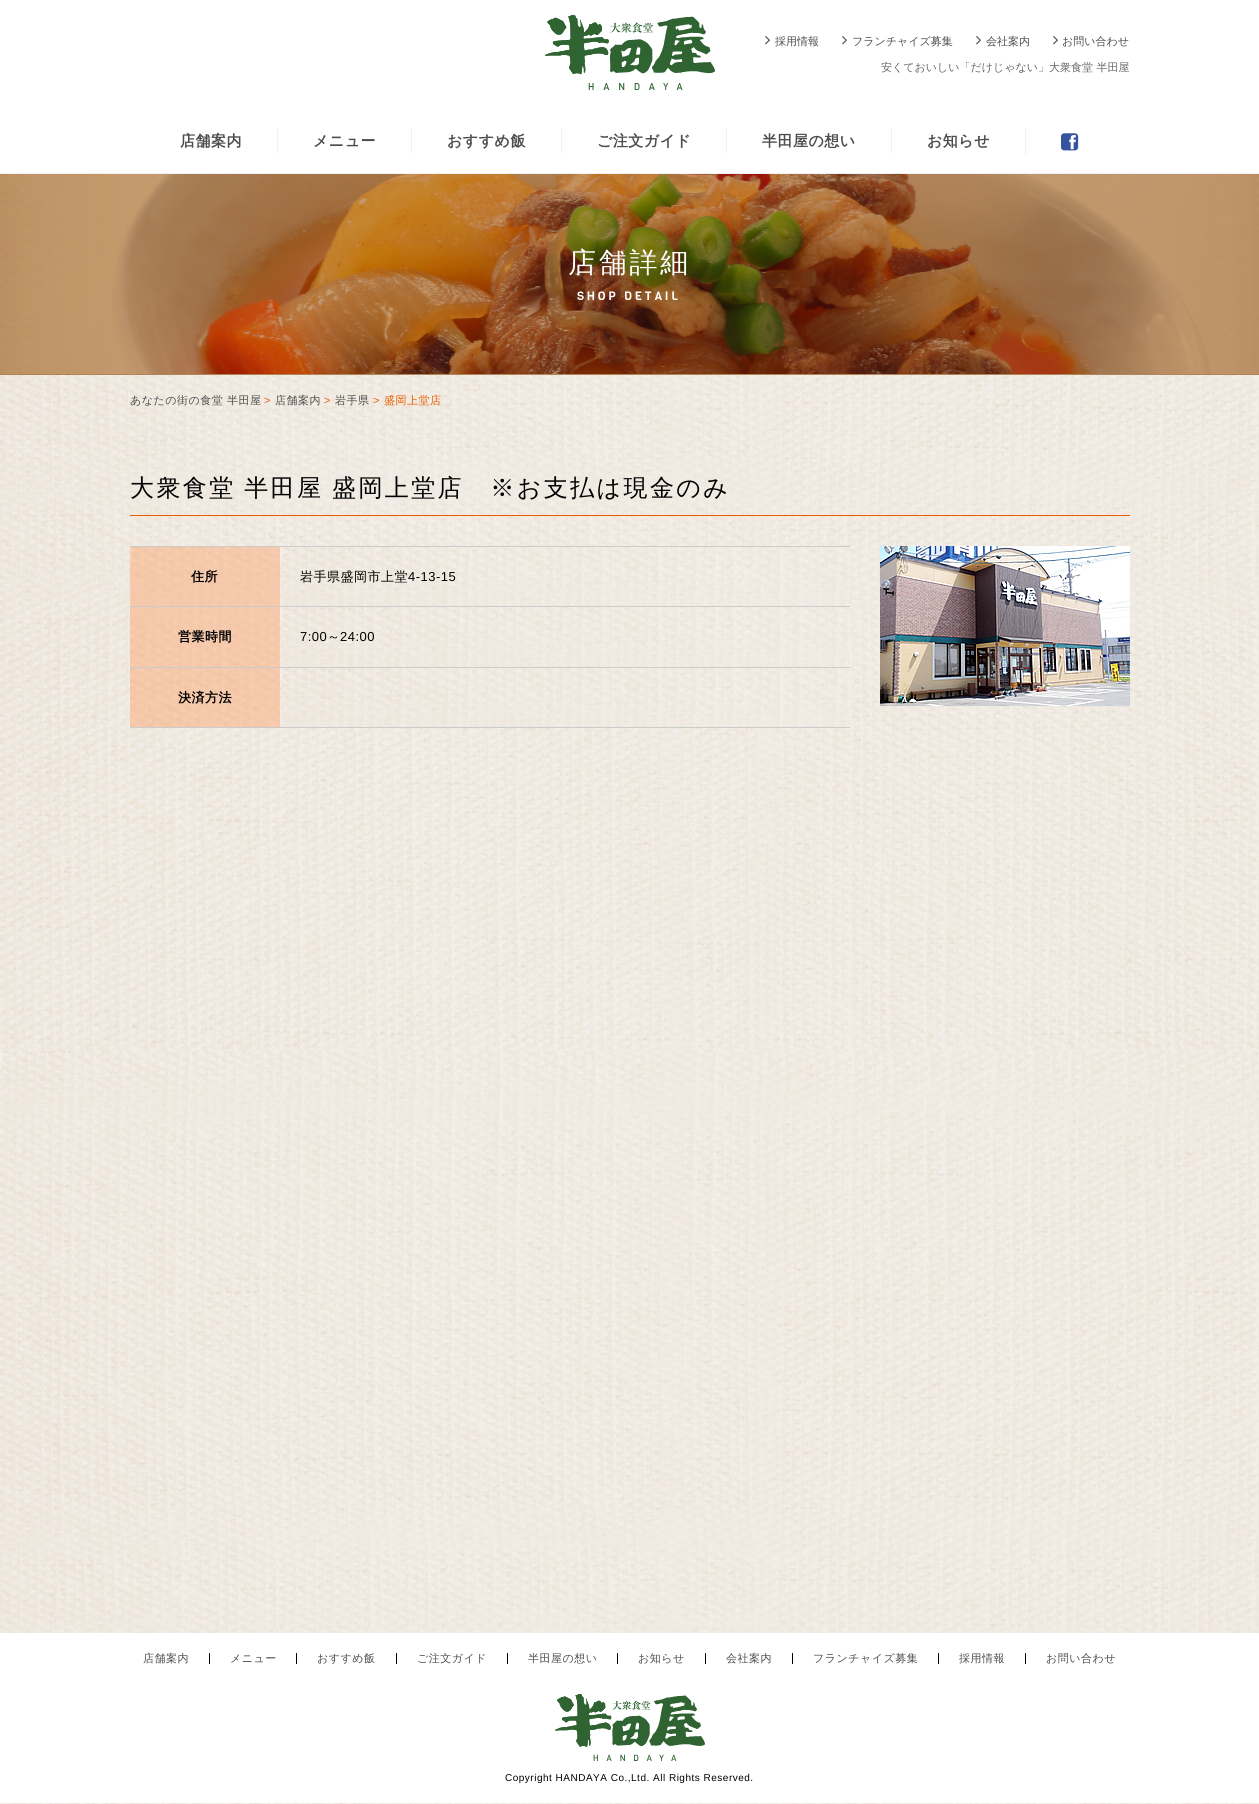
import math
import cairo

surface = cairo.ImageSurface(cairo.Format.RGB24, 1259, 1804)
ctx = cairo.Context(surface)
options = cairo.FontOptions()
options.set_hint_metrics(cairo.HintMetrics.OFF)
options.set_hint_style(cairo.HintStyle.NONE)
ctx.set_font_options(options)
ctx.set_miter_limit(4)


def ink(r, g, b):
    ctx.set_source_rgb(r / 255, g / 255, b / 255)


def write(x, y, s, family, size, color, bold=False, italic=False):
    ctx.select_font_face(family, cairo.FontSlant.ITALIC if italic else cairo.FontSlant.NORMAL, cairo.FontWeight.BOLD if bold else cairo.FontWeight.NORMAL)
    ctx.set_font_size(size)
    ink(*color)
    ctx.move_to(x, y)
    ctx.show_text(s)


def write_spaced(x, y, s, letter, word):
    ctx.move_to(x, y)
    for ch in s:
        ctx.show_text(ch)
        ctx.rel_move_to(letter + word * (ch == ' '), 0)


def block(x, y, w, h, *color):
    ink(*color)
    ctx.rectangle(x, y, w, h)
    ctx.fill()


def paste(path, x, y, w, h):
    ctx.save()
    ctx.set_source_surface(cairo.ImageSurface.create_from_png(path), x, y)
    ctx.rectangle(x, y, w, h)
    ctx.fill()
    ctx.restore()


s1 = dict(family="WenQuanYi Zen Hei Medium", size=11, color=(77, 77, 77))
s2 = dict(family="WenQuanYi Zen Hei Medium", size=11, color=(102, 102, 102))

ink(255, 255, 255)
ctx.paint()
paste("pic1.png", 0, 375, 1259, 1429)
block(0, 173, 1259, 1, 241, 241, 241)
paste("pic2.png", 545, 15, 170, 75)
paste("pic3.png", 765, 36, 5, 9)
write(775, 45, "採用情報", **s1)
paste("pic3.png", 842, 36, 5, 9)
write(852, 45, "フランチャイズ募集", **s1)
paste("pic3.png", 976, 36, 5, 9)
write(986, 45, "会社案内", **s1)
paste("pic3.png", 1053, 36, 5, 9)
write(1062, 45, "お問い合わせ", **s1)
write(881, 71, "安くておいしい「だけじゃない」大衆食堂 半田屋", **s2)
ctx.select_font_face("WenQuanYi Zen Hei", cairo.FontSlant.NORMAL, cairo.FontWeight.BOLD)
ctx.set_font_size(15)
ink(77, 77, 77)
write_spaced(180, 146, "店舗案内", 0.5, 0)
block(277, 128, 1, 25, 249, 239, 229)
ink(77, 77, 77)
write_spaced(313, 146, "メニュー", 0.5, 0)
block(411, 128, 1, 25, 249, 239, 229)
ink(77, 77, 77)
write_spaced(447, 146, "おすすめ飯", 0.5, 0)
block(561, 128, 1, 25, 249, 239, 229)
ink(77, 77, 77)
write_spaced(597, 146, "ご注文ガイド", 0.5, 0)
block(726, 128, 1, 25, 249, 239, 229)
ink(77, 77, 77)
write_spaced(762, 146, "半田屋の想い", 0.5, 0)
block(891, 128, 1, 25, 249, 239, 229)
ink(77, 77, 77)
write_spaced(927, 146, "お知らせ", 0.5, 0)
block(1025, 128, 1, 27, 249, 239, 229)
paste("pic4.png", 1061, 133, 18, 18)
paste("pic5.png", 0, 174, 1259, 201)
paste("pic6.png", 0, 174, 1259, 200)
ctx.select_font_face("WenQuanYi Zen Hei Medium")
ctx.set_font_size(28)
ink(255, 255, 255)
write_spaced(568, 272, "店舗詳細", 2.75, 0)
ctx.select_font_face("Viga")
ctx.set_font_size(12)
write_spaced(577, 300, "SHOP DETAIL", 2.75, 0)
ctx.select_font_face("WenQuanYi Zen Hei Medium")
ctx.set_font_size(11)
ink(77, 77, 77)
write_spaced(130, 404, "あなたの街の食堂 半田屋", 0.5, 0)
ctx.select_font_face("Liberation Sans")
ink(234, 92, 1)
write_spaced(264, 404, ">", 0.5, 0)
ctx.select_font_face("WenQuanYi Zen Hei Medium")
ink(77, 77, 77)
write_spaced(275, 404, "店舗案内", 0.5, 0)
ctx.select_font_face("Liberation Sans")
ink(234, 92, 1)
write_spaced(324, 404, ">", 0.5, 0)
ctx.select_font_face("WenQuanYi Zen Hei Medium")
ink(77, 77, 77)
write_spaced(335, 404, "岩手県", 0.5, 0)
ctx.select_font_face("Liberation Sans")
ink(234, 92, 1)
write_spaced(373, 404, ">", 0.5, 0)
ctx.select_font_face("WenQuanYi Zen Hei Medium")
write_spaced(384, 404, "盛岡上堂店", 0.5, 0)
block(130, 515, 1000, 1, 234, 92, 1)
ctx.set_font_size(24)
ink(0, 0, 0)
write_spaced(130, 496, "大衆食堂 半田屋 盛岡上堂店　※お支払は現金のみ", 2.4, -1)
paste("pic7.png", 130, 547, 150, 180)
block(130, 727, 720, 1, 203, 203, 203)
ctx.select_font_face("WenQuanYi Zen Hei", cairo.FontSlant.NORMAL, cairo.FontWeight.BOLD)
ctx.set_font_size(13)
ink(0, 0, 0)
write_spaced(191, 581, "住所", 0.5, 0)
paste("pic8.png", 280, 547, 570, 59)
block(130, 546, 720, 1, 203, 203, 203)
ctx.select_font_face("WenQuanYi Zen Hei Medium")
ink(0, 0, 0)
write_spaced(300, 581, "岩手県盛岡市上堂", 0.5, 0)
ctx.select_font_face("Liberation Sans")
write_spaced(408, 581, "4-13-15", 0.5, 0)
ctx.select_font_face("WenQuanYi Zen Hei", cairo.FontSlant.NORMAL, cairo.FontWeight.BOLD)
write_spaced(178, 641, "営業時間", 0.5, 0)
paste("pic9.png", 280, 607, 570, 60)
block(130, 606, 720, 1, 203, 203, 203)
ctx.select_font_face("Liberation Sans")
ink(0, 0, 0)
write_spaced(300, 641, "7:00", 0.5, 0)
ctx.select_font_face("WenQuanYi Zen Hei Medium")
write_spaced(327, 641, "～", 0.5, 0)
ctx.select_font_face("Liberation Sans")
write_spaced(340, 641, "24:00", 0.5, 0)
paste("pic8.png", 280, 668, 570, 59)
block(130, 667, 720, 1, 203, 203, 203)
ctx.select_font_face("WenQuanYi Zen Hei", cairo.FontSlant.NORMAL, cairo.FontWeight.BOLD)
ink(0, 0, 0)
write_spaced(178, 702, "決済方法", 0.5, 0)
paste("pic10.png", 880, 546, 250, 160)
block(0, 1633, 1259, 170, 255, 255, 255)
ctx.select_font_face("WenQuanYi Zen Hei Medium")
ctx.set_font_size(11)
ink(77, 77, 77)
write_spaced(143, 1662, "店舗案内", 0.5, 0)
block(209, 1653, 1, 11, 0, 0, 0)
ink(77, 77, 77)
write_spaced(230, 1662, "メニュー", 0.5, 0)
block(296, 1653, 1, 11, 0, 0, 0)
ink(77, 77, 77)
write_spaced(317, 1662, "おすすめ飯", 0.5, 0)
block(396, 1653, 1, 11, 0, 0, 0)
ink(77, 77, 77)
write_spaced(417, 1662, "ご注文ガイド", 0.5, 0)
block(507, 1653, 1, 11, 0, 0, 0)
ink(77, 77, 77)
write_spaced(528, 1662, "半田屋の想い", 0.5, 0)
block(617, 1653, 1, 11, 0, 0, 0)
ink(77, 77, 77)
write_spaced(638, 1662, "お知らせ", 0.5, 0)
block(705, 1653, 1, 11, 0, 0, 0)
ink(77, 77, 77)
write_spaced(726, 1662, "会社案内", 0.5, 0)
block(792, 1653, 1, 11, 0, 0, 0)
ink(77, 77, 77)
write_spaced(813, 1662, "フランチャイズ募集", 0.5, 0)
block(938, 1653, 1, 11, 0, 0, 0)
ink(77, 77, 77)
write_spaced(959, 1662, "採用情報", 0.5, 0)
block(1025, 1653, 1, 11, 0, 0, 0)
ink(77, 77, 77)
write_spaced(1046, 1662, "お問い合わせ", 0.5, 0)
paste("pic11.png", 555, 1694, 150, 67)
ctx.select_font_face("Liberation Sans")
ctx.set_font_size(10)
ink(0, 0, 0)
write_spaced(505, 1781, "Copyright HANDAYA Co.,Ltd. All Rights Reserved.", 0.5, 0)
surface.write_to_png("screenshot.png")
